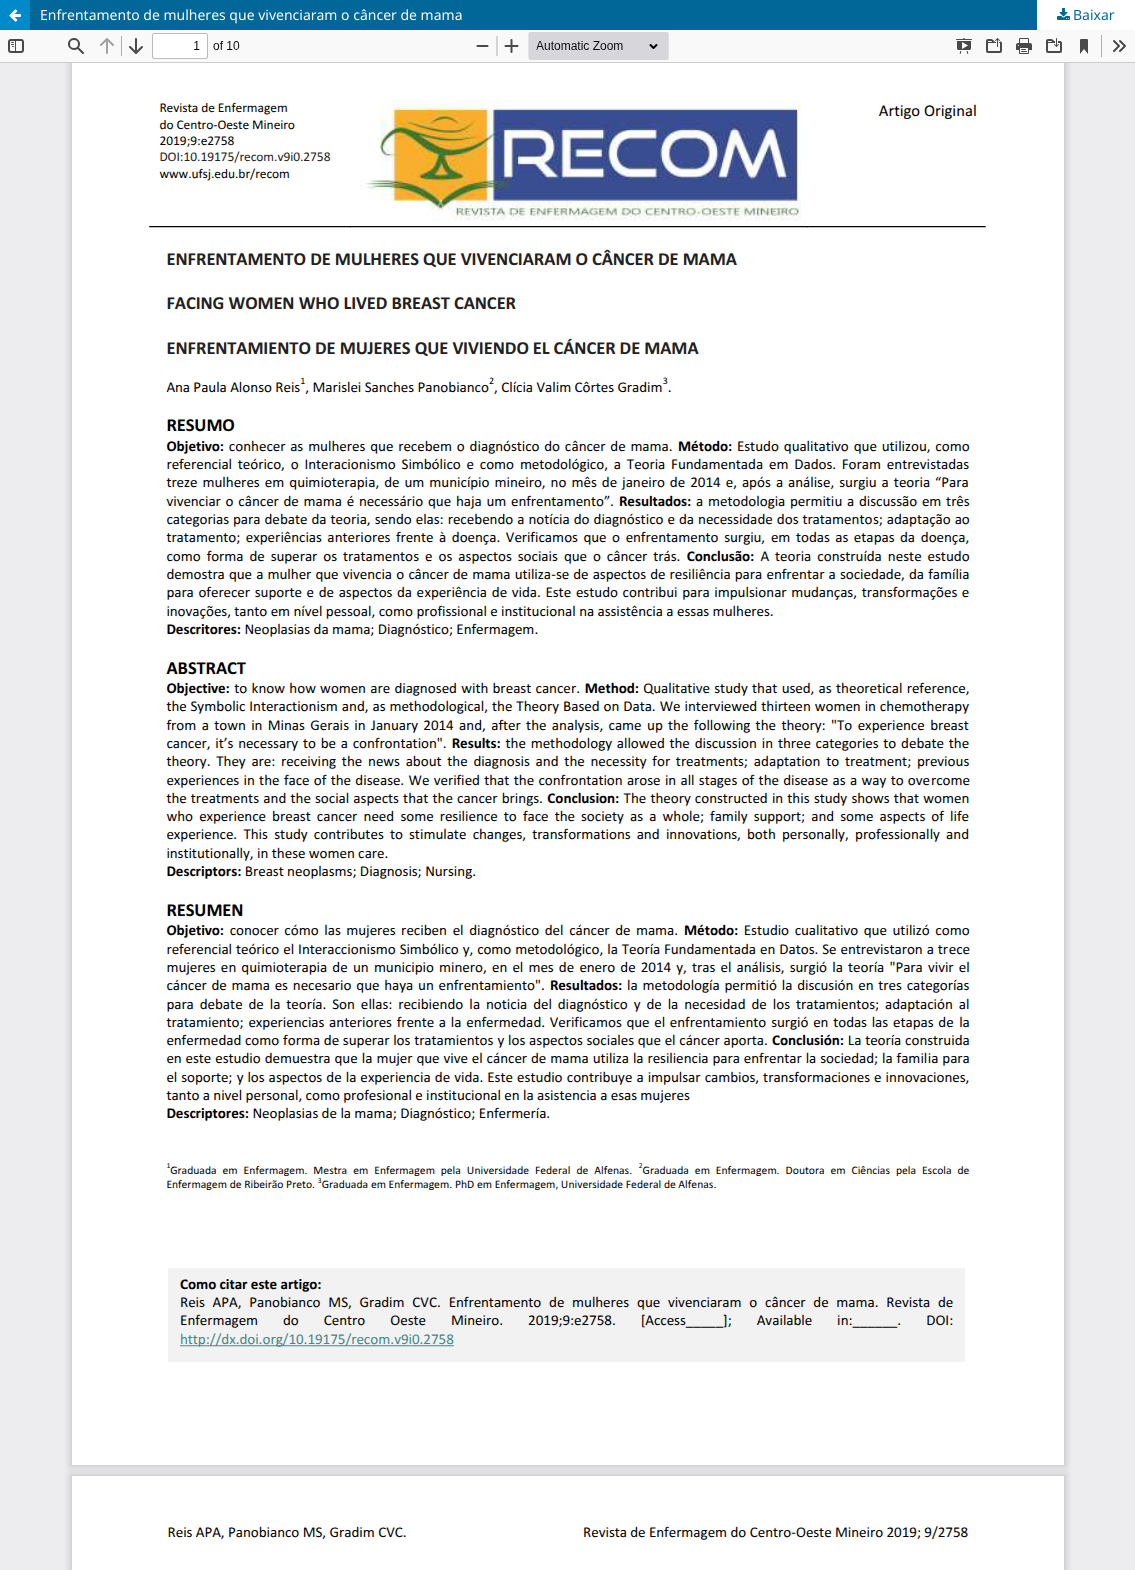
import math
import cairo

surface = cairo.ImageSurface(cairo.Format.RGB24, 1135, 1570)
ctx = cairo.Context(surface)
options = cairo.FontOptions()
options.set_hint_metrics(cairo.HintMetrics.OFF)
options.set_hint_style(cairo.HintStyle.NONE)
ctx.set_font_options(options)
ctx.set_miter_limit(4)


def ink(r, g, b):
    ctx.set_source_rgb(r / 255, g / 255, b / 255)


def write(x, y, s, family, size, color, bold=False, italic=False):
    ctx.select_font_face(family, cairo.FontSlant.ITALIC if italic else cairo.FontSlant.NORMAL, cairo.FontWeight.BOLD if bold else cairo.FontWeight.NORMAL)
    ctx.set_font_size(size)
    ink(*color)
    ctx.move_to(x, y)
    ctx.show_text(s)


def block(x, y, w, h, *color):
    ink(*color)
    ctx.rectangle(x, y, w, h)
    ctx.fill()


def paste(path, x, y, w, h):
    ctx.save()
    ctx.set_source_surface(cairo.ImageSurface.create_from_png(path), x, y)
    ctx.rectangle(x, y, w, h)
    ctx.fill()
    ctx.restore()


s1 = dict(family="Noto Sans", size=14, color=(255, 255, 255))
s2 = dict(family="Noto Sans", size=14, color=(0, 103, 152))

ink(255, 255, 255)
ctx.paint()
block(30, 0, 1007, 30, 0, 103, 152)
block(0, 0, 30, 30, 0, 138, 203)
paste("pic1.png", 9, 9, 12, 13)
write(40, 20, "Enfrentamento de mulheres que vivenciaram o câncer de mama", **s1)
paste("pic2.png", 1057, 8, 13, 12)
write(1073, 20, "Baixar", **s2)
paste("pic3.png", 0, 30, 1135, 1540)
surface.write_to_png("screenshot.png")
